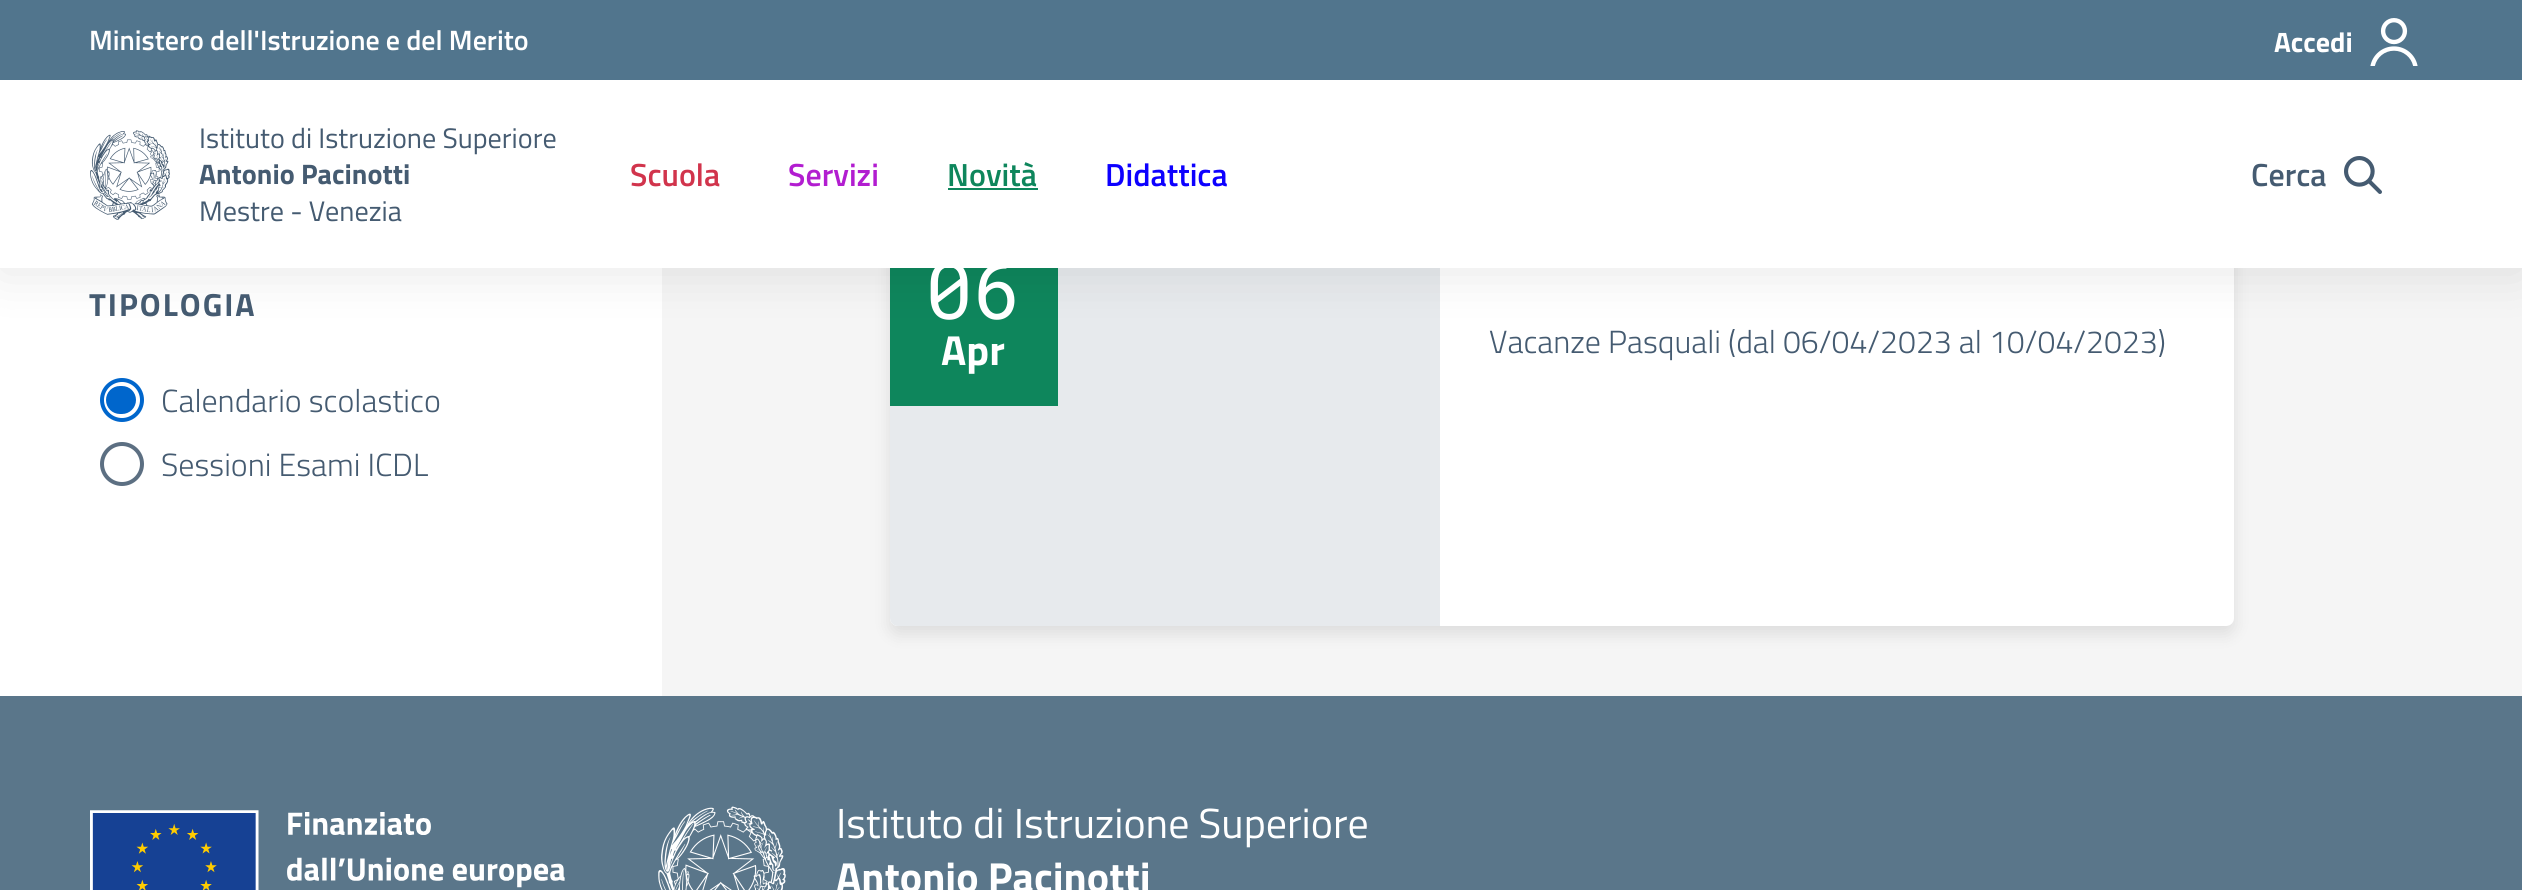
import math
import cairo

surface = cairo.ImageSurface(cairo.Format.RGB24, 2522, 890)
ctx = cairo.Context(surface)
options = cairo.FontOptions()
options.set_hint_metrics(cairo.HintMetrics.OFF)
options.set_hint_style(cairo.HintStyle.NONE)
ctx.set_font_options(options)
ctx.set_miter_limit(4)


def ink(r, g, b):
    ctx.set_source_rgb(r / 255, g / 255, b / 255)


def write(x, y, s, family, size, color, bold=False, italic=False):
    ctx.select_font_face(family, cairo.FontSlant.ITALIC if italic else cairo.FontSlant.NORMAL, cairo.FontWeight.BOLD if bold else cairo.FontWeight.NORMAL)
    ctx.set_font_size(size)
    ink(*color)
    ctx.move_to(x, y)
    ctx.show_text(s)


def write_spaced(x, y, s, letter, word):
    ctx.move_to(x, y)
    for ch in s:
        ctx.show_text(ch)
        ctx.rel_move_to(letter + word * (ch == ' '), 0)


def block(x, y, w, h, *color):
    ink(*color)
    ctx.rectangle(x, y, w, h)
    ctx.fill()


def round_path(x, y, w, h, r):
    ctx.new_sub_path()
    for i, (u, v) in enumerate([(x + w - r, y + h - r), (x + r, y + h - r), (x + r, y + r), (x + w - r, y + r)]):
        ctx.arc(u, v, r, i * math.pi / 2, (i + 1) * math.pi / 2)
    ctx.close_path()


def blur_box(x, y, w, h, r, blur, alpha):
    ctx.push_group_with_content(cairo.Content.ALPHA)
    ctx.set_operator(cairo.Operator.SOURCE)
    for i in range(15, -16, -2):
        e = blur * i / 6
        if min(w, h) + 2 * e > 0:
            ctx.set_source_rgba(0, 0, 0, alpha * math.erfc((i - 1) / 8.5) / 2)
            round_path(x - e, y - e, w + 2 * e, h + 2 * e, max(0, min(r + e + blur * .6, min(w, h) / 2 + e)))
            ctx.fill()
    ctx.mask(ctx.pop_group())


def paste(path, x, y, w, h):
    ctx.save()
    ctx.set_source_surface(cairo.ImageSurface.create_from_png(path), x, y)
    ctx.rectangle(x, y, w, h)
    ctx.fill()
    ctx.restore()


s1 = dict(family="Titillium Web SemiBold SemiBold", size=28, color=(255, 255, 255))
s2 = dict(family="Titillium Web", size=28, color=(255, 255, 255), bold=True)
s3 = dict(family="Titillium Web", size=28.2, color=(69, 91, 113))
s4 = dict(family="Titillium Web", size=28.2, color=(69, 91, 113), bold=True)
s5 = dict(family="Titillium Web SemiBold SemiBold", size=32, color=(209, 52, 76))
s6 = dict(family="Titillium Web SemiBold SemiBold", size=32, color=(178, 29, 208))
s7 = dict(family="Titillium Web SemiBold SemiBold", size=32, color=(14, 134, 92))
s8 = dict(family="Titillium Web SemiBold SemiBold", size=32, color=(13, 0, 255))
s9 = dict(family="Titillium Web SemiBold SemiBold", size=32, color=(69, 91, 113))
s10 = dict(family="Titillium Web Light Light", size=32, color=(69, 91, 113))
s11 = dict(family="Roboto Mono", size=80, color=(255, 255, 255))
s12 = dict(family="Titillium Web", size=42, color=(255, 255, 255), bold=True)
s13 = dict(family="Titillium Web", size=42, color=(255, 255, 255))

ink(245, 245, 245)
ctx.paint()
block(0, 268, 662, 428, 255, 255, 255)
ink(0, 0, 0)
blur_box(890, 194, 1344, 440, 8, 8, 0.1)
ink(255, 255, 255)
ctx.new_path()
ctx.move_to(890, 186)
ctx.line_to(2234, 186)
ctx.line_to(2234, 618)
ctx.curve_to(2234, 622.5, 2230.5, 626, 2226, 626)
ctx.line_to(898, 626)
ctx.curve_to(893.5, 626, 890, 622.5, 890, 618)
ctx.close_path()
ctx.fill()
ink(231, 234, 237)
ctx.new_path()
ctx.move_to(890, 186)
ctx.line_to(1440, 186)
ctx.line_to(1440, 626)
ctx.line_to(898, 626)
ctx.curve_to(893.5, 626, 890, 622.5, 890, 618)
ctx.close_path()
ctx.fill()
block(890, 268, 168, 138, 14, 134, 92)
ink(0, 0, 0)
blur_box(0, 4, 2522, 268, 0, 25, 0.1)
block(0, 80, 2522, 188, 255, 255, 255)
block(0, 0, 2522, 80, 81, 117, 141)
write(89, 50, "Ministero dell'Istruzione e del Merito", **s1)
write(2274, 52, "Accedi", **s2)
paste("pic1.png", 2370, 18, 48, 48)
paste("pic2.png", 90, 130, 80, 90)
write(199, 148, "Istituto di Istruzione Superiore", **s3)
write(199, 184, "Antonio Pacinotti", **s4)
write(199, 221, "Mestre - Venezia", **s3)
write(630, 186, "Scuola", **s5)
write(788, 186, "Servizi", **s6)
write(947, 186, "Novità", **s7)
block(948, 188, 90, 2, 14, 134, 92)
write(1105, 186, "Didattica", **s8)
write(2251, 186, "Cerca", **s9)
paste("pic3.png", 2344, 156, 38, 38)
ctx.select_font_face("Titillium Web", cairo.FontSlant.NORMAL, cairo.FontWeight.BOLD)
write_spaced(89, 316, "TIPOLOGIA", 2, 0)
ctx.new_path()
ctx.arc(122, 400, 20, 0, 2 * math.pi)
ink(0, 102, 204)
ctx.set_line_width(4)
ctx.stroke()
round_path(107.5, 387.5, 27, 25, 12.5)
ctx.fill_preserve()
ctx.set_line_width(3)
ctx.stroke()
write(161, 412, "Calendario scolastico", **s10)
ctx.new_path()
ctx.arc(122, 464, 20, 0, 2 * math.pi)
ink(92, 111, 130)
ctx.set_line_width(4)
ctx.stroke()
write(161, 476, "Sessioni Esami ICDL", **s10)
write(925, 319, "06", **s11)
write(941, 365, "Apr", **s12)
write(1489, 353, "Vacanze Pasquali (dal 06/04/2023 al 10/04/2023)", **s10)
block(0, 696, 2522, 194, 90, 118, 138)
paste("pic4.png", 90, 810, 475, 80)
paste("pic5.png", 658, 806, 128, 84)
write(836, 838, "Istituto di Istruzione Superiore", **s13)
write(836, 892, "Antonio Pacinotti", **s12)
surface.write_to_png("screenshot.png")
